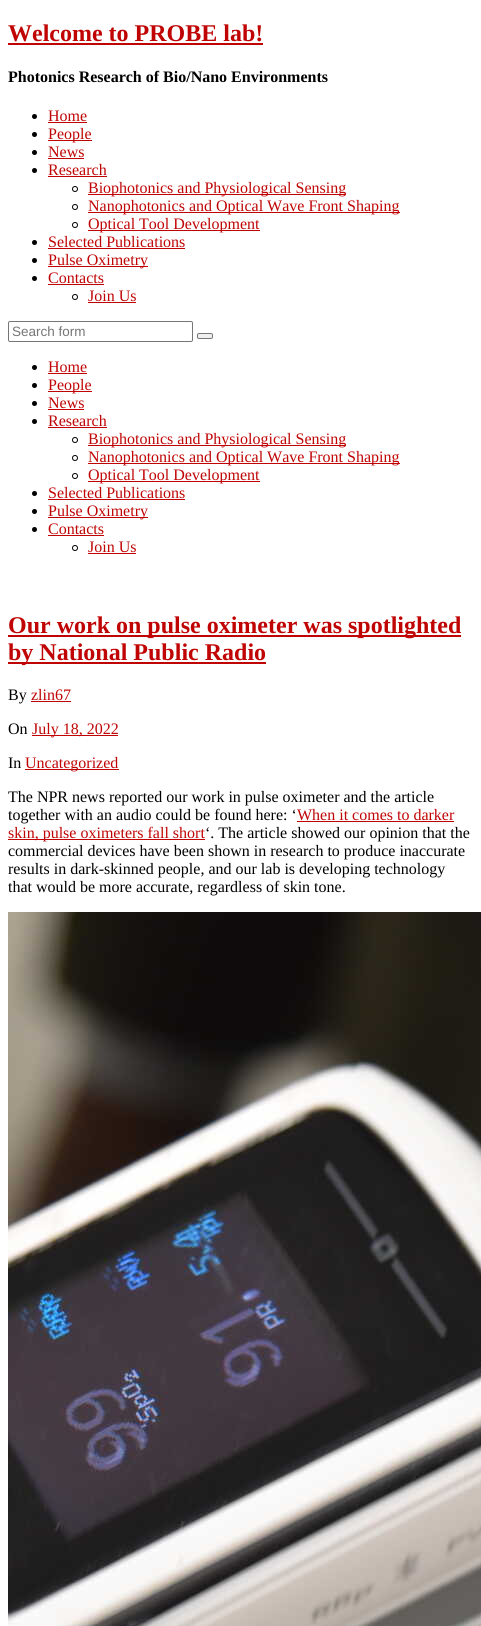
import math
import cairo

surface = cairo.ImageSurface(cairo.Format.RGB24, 481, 1626)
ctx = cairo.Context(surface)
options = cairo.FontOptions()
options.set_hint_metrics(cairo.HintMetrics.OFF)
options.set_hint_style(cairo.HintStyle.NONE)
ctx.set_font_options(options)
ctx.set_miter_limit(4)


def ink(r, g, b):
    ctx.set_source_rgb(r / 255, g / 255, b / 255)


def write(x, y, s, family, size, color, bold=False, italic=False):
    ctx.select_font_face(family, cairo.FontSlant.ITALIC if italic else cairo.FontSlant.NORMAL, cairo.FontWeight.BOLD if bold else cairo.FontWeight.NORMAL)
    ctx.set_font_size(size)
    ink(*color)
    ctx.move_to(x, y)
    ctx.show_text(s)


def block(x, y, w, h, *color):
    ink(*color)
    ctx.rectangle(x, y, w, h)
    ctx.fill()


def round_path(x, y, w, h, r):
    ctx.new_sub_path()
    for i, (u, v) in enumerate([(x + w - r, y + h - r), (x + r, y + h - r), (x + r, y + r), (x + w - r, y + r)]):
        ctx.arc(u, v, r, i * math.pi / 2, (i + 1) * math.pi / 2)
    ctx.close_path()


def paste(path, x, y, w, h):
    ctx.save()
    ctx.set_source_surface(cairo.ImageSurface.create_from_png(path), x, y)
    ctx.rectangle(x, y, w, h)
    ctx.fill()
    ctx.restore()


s1 = dict(family="Liberation Serif", size=24, color=(192, 4, 4), bold=True)
s2 = dict(family="Liberation Serif", size=16, color=(0, 0, 0), bold=True)
s3 = dict(family="Liberation Serif", size=16, color=(192, 4, 4))
s4 = dict(family="Liberation Sans", size=13.5, color=(117, 117, 117))
s5 = dict(family="Liberation Serif", size=16, color=(0, 0, 0))

ink(255, 255, 255)
ctx.paint()
write(8, 41, "Welcome to PROBE lab!", **s1)
block(8, 43, 255, 2, 192, 4, 4)
write(8, 82, "Photonics Research of Bio/Nano Environments", **s2)
ctx.new_path()
ctx.arc(34.5, 116.5, 2.5, 0, 2 * math.pi)
ctx.fill()
write(48, 121, "Home", **s3)
block(48, 122, 39, 1, 192, 4, 4)
ink(0, 0, 0)
ctx.new_path()
ctx.arc(34.5, 134.5, 2.5, 0, 2 * math.pi)
ctx.fill()
block(48, 140, 44, 1, 192, 4, 4)
write(48, 139, "People", **s3)
ink(0, 0, 0)
ctx.new_path()
ctx.arc(34.5, 152.5, 2.5, 0, 2 * math.pi)
ctx.fill()
write(48, 157, "News", **s3)
block(48, 158, 36, 1, 192, 4, 4)
ink(0, 0, 0)
ctx.new_path()
ctx.arc(34.5, 170.5, 2.5, 0, 2 * math.pi)
ctx.fill()
write(48, 175, "Research", **s3)
block(48, 176, 59, 1, 192, 4, 4)
ctx.new_path()
ctx.arc(75, 189, 2.5, 0, 2 * math.pi)
ink(0, 0, 0)
ctx.set_line_width(1)
ctx.stroke()
block(88, 194, 258, 1, 192, 4, 4)
write(88, 193, "Biophotonics and Physiological Sensing", **s3)
ctx.new_path()
ctx.arc(75, 207, 2.5, 0, 2 * math.pi)
ink(0, 0, 0)
ctx.stroke()
block(88, 212, 312, 1, 192, 4, 4)
write(88, 211, "Nanophotonics and Optical Wave Front Shaping", **s3)
ctx.new_path()
ctx.arc(75, 225, 2.5, 0, 2 * math.pi)
ink(0, 0, 0)
ctx.stroke()
block(88, 230, 172, 1, 192, 4, 4)
write(88, 229, "Optical Tool Development", **s3)
ink(0, 0, 0)
ctx.new_path()
ctx.arc(34.5, 242.5, 2.5, 0, 2 * math.pi)
ctx.fill()
write(48, 247, "Selected Publications", **s3)
block(48, 248, 137, 1, 192, 4, 4)
ink(0, 0, 0)
ctx.new_path()
ctx.arc(34.5, 260.5, 2.5, 0, 2 * math.pi)
ctx.fill()
block(48, 266, 100, 1, 192, 4, 4)
write(48, 265, "Pulse Oximetry", **s3)
ink(0, 0, 0)
ctx.new_path()
ctx.arc(34.5, 278.5, 2.5, 0, 2 * math.pi)
ctx.fill()
write(48, 283, "Contacts", **s3)
block(48, 284, 56, 1, 192, 4, 4)
ctx.new_path()
ctx.arc(75, 297, 2.5, 0, 2 * math.pi)
ink(0, 0, 0)
ctx.stroke()
write(88, 301, "Join Us", **s3)
block(88, 302, 48, 1, 192, 4, 4)
round_path(8.5, 321.5, 184, 20, 1.5)
ink(118, 118, 118)
ctx.stroke()
write(12, 336, "Search form", **s4)
ink(239, 239, 239)
round_path(197.5, 333.5, 15, 5, 1.5)
ctx.fill_preserve()
ink(118, 118, 118)
ctx.stroke()
ink(0, 0, 0)
ctx.arc(34.5, 367.5, 2.5, 0, 2 * math.pi)
ctx.fill()
write(48, 372, "Home", **s3)
block(48, 373, 39, 1, 192, 4, 4)
ink(0, 0, 0)
ctx.new_path()
ctx.arc(34.5, 385.5, 2.5, 0, 2 * math.pi)
ctx.fill()
block(48, 391, 44, 1, 192, 4, 4)
write(48, 390, "People", **s3)
ink(0, 0, 0)
ctx.new_path()
ctx.arc(34.5, 403.5, 2.5, 0, 2 * math.pi)
ctx.fill()
write(48, 408, "News", **s3)
block(48, 409, 36, 1, 192, 4, 4)
ink(0, 0, 0)
ctx.new_path()
ctx.arc(34.5, 421.5, 2.5, 0, 2 * math.pi)
ctx.fill()
write(48, 426, "Research", **s3)
block(48, 427, 59, 1, 192, 4, 4)
ctx.new_path()
ctx.arc(75, 440, 2.5, 0, 2 * math.pi)
ink(0, 0, 0)
ctx.stroke()
block(88, 445, 258, 1, 192, 4, 4)
write(88, 444, "Biophotonics and Physiological Sensing", **s3)
ctx.new_path()
ctx.arc(75, 458, 2.5, 0, 2 * math.pi)
ink(0, 0, 0)
ctx.stroke()
block(88, 463, 312, 1, 192, 4, 4)
write(88, 462, "Nanophotonics and Optical Wave Front Shaping", **s3)
ctx.new_path()
ctx.arc(75, 476, 2.5, 0, 2 * math.pi)
ink(0, 0, 0)
ctx.stroke()
block(88, 481, 172, 1, 192, 4, 4)
write(88, 480, "Optical Tool Development", **s3)
ink(0, 0, 0)
ctx.new_path()
ctx.arc(34.5, 493.5, 2.5, 0, 2 * math.pi)
ctx.fill()
write(48, 498, "Selected Publications", **s3)
block(48, 499, 137, 1, 192, 4, 4)
ink(0, 0, 0)
ctx.new_path()
ctx.arc(34.5, 511.5, 2.5, 0, 2 * math.pi)
ctx.fill()
block(48, 517, 100, 1, 192, 4, 4)
write(48, 516, "Pulse Oximetry", **s3)
ink(0, 0, 0)
ctx.new_path()
ctx.arc(34.5, 529.5, 2.5, 0, 2 * math.pi)
ctx.fill()
write(48, 534, "Contacts", **s3)
block(48, 535, 56, 1, 192, 4, 4)
ctx.new_path()
ctx.arc(75, 548, 2.5, 0, 2 * math.pi)
ink(0, 0, 0)
ctx.stroke()
write(88, 552, "Join Us", **s3)
block(88, 553, 48, 1, 192, 4, 4)
block(8, 635, 453, 2, 192, 4, 4)
write(8, 633, "Our work on pulse oximeter was spotlighted", **s1)
block(8, 662, 258, 2, 192, 4, 4)
write(8, 660, "by National Public Radio", **s1)
write(8, 700, "By", **s5)
write(31, 700, "zlin67", **s3)
block(31, 701, 40, 1, 192, 4, 4)
write(8, 734, "On", **s5)
block(32, 735, 86, 1, 192, 4, 4)
write(32, 734, "July 18, 2022", **s3)
write(8, 768, "In", **s5)
block(25, 769, 94, 1, 192, 4, 4)
write(25, 768, "Uncategorized", **s3)
write(8, 802, "The NPR news reported our work in pulse oximeter and the article", **s5)
write(8, 820, "together with an audio could be found here: ‘", **s5)
write(297, 820, "When it comes to darker", **s3)
block(297, 821, 157, 1, 192, 4, 4)
block(8, 839, 197, 1, 192, 4, 4)
write(8, 838, "skin, pulse oximeters fall short", **s3)
write(205, 838, "‘. The article showed our opinion that the", **s5)
write(8, 856, "commercial devices have been shown in research to produce inaccurate", **s5)
write(8, 874, "results in dark-skinned people, and our lab is developing technology", **s5)
write(8, 892, "that would be more accurate, regardless of skin tone.", **s5)
paste("pic1.png", 8, 912, 473, 714)
surface.write_to_png("screenshot.png")
